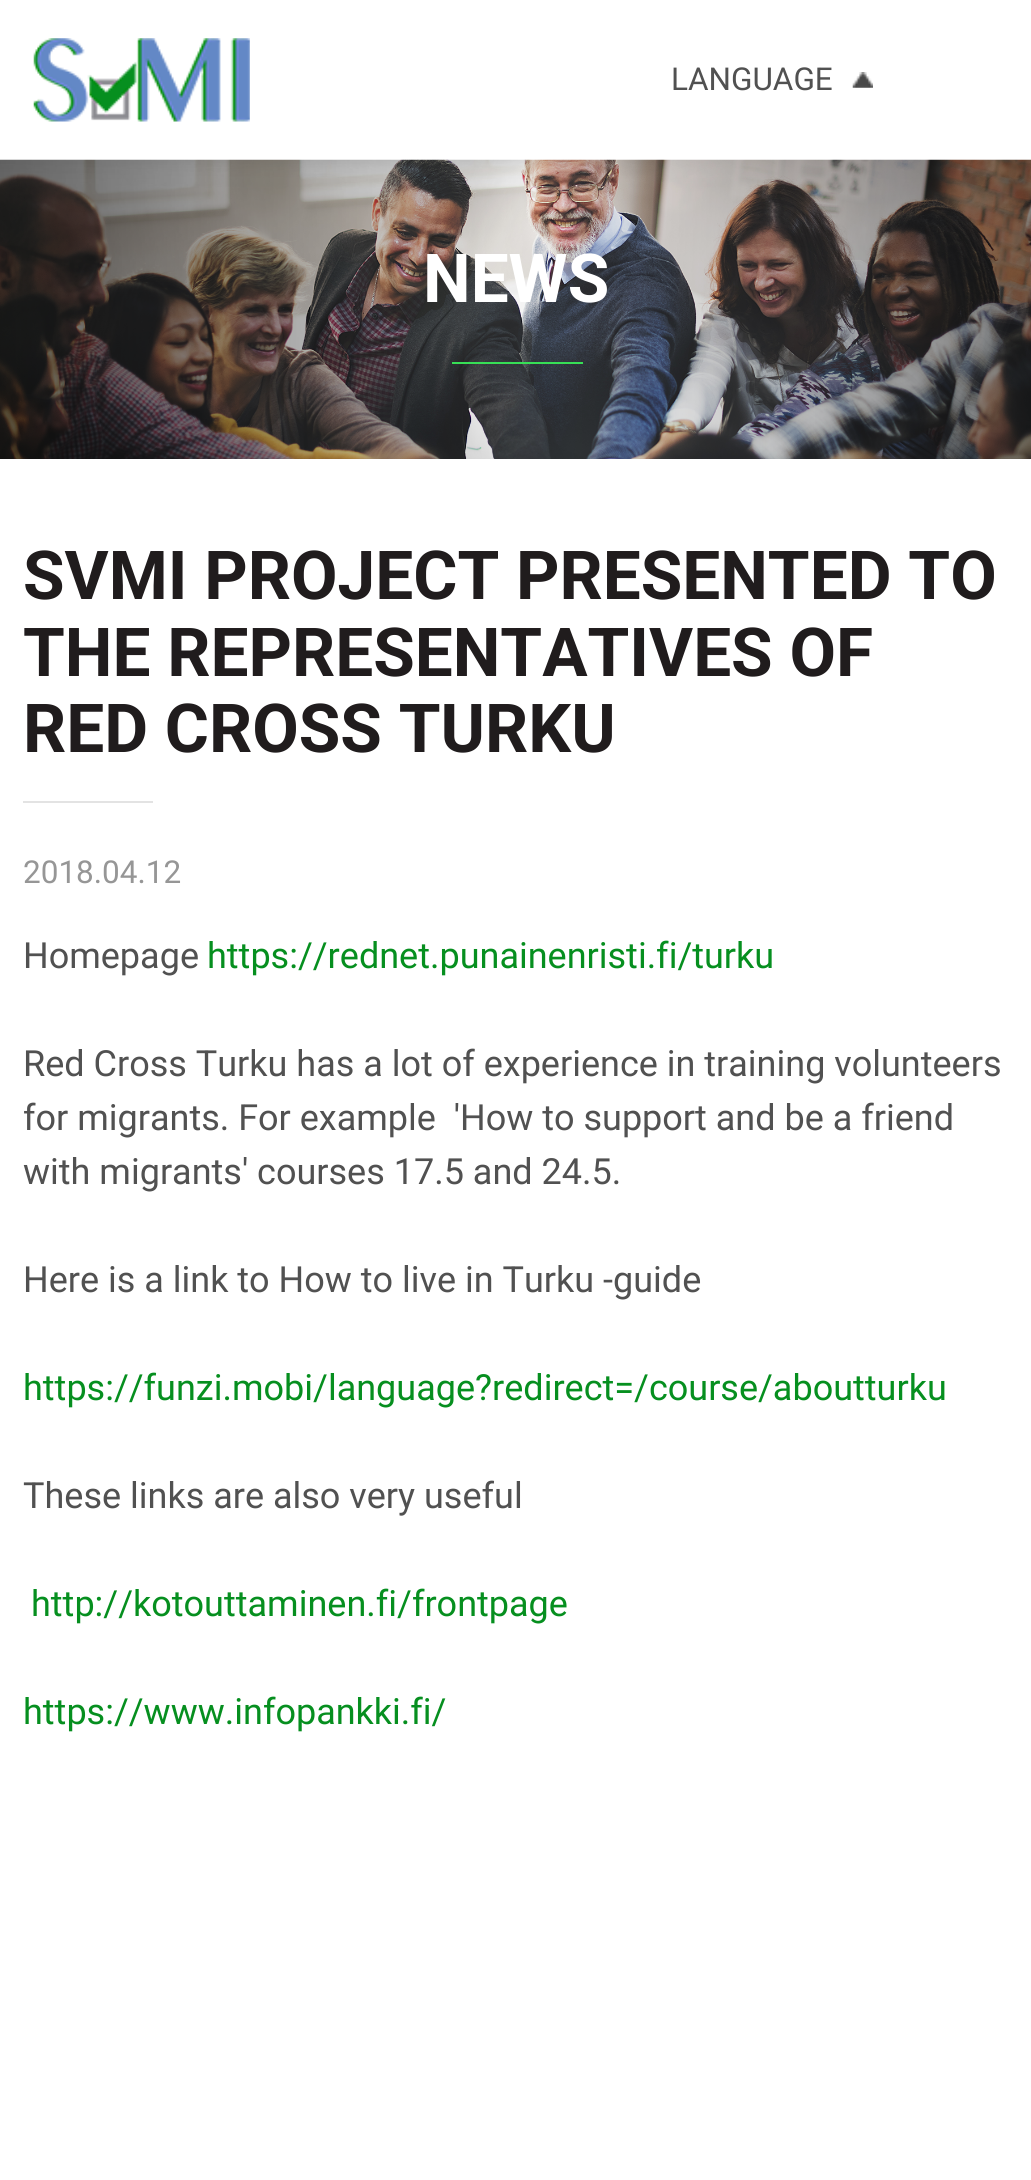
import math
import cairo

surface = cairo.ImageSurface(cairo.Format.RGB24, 1031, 2180)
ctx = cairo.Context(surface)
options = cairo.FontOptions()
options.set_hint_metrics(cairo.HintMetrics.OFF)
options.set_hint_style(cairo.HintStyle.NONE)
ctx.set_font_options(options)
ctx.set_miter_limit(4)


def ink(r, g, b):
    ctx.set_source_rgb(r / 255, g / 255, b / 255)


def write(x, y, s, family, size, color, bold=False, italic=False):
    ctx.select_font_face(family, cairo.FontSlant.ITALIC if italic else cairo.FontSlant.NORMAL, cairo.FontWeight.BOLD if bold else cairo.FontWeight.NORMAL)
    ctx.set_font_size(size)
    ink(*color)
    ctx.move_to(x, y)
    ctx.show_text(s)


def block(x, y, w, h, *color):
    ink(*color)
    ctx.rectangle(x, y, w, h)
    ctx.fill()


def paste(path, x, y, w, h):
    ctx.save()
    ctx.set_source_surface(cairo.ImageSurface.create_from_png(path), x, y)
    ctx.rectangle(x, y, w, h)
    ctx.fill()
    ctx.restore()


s1 = dict(family="Roboto", size=31.5, color=(81, 81, 81))
s2 = dict(family="Roboto", size=67.5, color=(255, 255, 255), bold=True)
s3 = dict(family="Roboto", size=67.5, color=(32, 28, 29), bold=True)
s4 = dict(family="Roboto", size=31.5, color=(150, 150, 150))
s5 = dict(family="Roboto", size=36, color=(81, 81, 81))
s6 = dict(family="Roboto", size=36, color=(6, 143, 31))

ink(255, 255, 255)
ctx.paint()
paste("pic1.png", 33, 38, 217, 84)
paste("pic2.png", 852, 72, 21, 16)
write(671, 90, "LANGUAGE", **s1)
paste("pic3.png", 0, 159, 1031, 300)
write(423, 302, "NEWS", **s2)
block(452, 362, 131, 2, 55, 223, 86)
write(23, 599, "SVMI PROJECT PRESENTED TO", **s3)
write(23, 676, "THE REPRESENTATIVES OF", **s3)
write(23, 752, "RED CROSS TURKU", **s3)
block(23, 801, 130, 2, 227, 227, 227)
write(23, 883, "2018.04.12", **s4)
write(23, 968, "Homepage", **s5)
write(207, 968, "https://rednet.punainenristi.fi/turku", **s6)
write(23, 1076, "Red Cross Turku has a lot of experience in training volunteers", **s5)
write(23, 1130, "for migrants. For example  'How to support and be a friend", **s5)
write(23, 1184, "with migrants' courses 17.5 and 24.5.", **s5)
write(23, 1292, "Here is a link to How to live in Turku -guide", **s5)
write(23, 1400, "https://funzi.mobi/language?redirect=/course/aboutturku", **s6)
write(23, 1508, "These links are also very useful", **s5)
write(31, 1616, "http://kotouttaminen.fi/frontpage", **s6)
write(23, 1724, "https://www.infopankki.fi/", **s6)
surface.write_to_png("screenshot.png")
